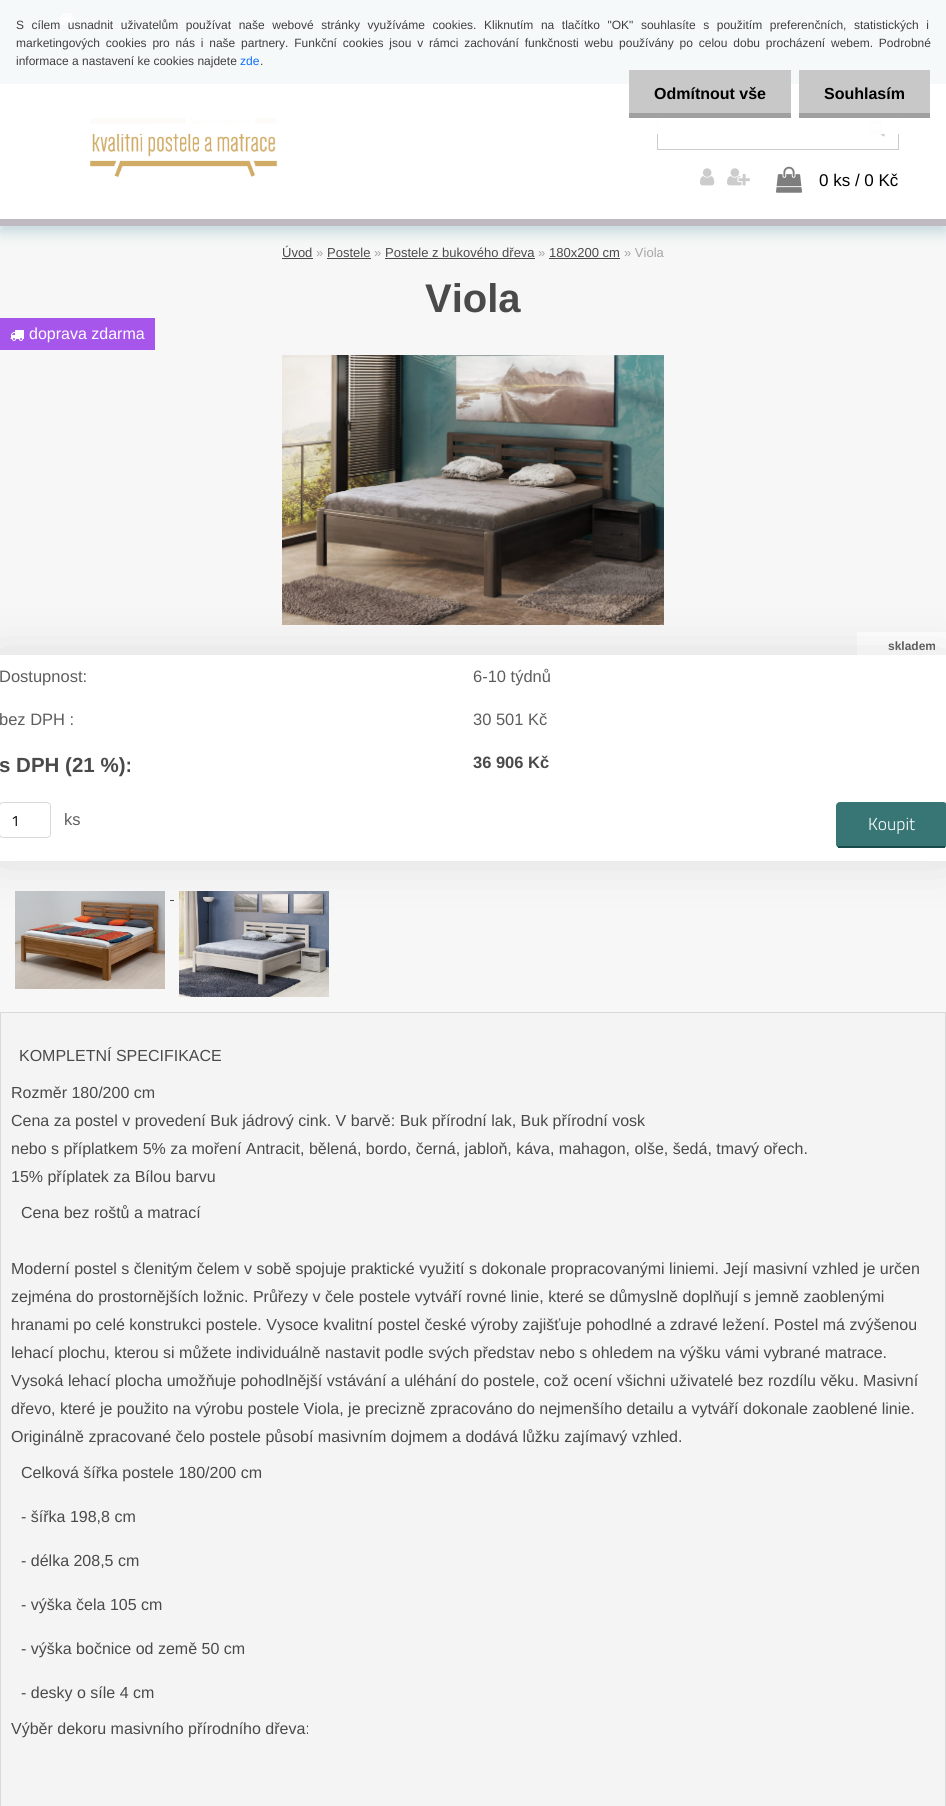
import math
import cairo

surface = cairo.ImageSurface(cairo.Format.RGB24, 946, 1806)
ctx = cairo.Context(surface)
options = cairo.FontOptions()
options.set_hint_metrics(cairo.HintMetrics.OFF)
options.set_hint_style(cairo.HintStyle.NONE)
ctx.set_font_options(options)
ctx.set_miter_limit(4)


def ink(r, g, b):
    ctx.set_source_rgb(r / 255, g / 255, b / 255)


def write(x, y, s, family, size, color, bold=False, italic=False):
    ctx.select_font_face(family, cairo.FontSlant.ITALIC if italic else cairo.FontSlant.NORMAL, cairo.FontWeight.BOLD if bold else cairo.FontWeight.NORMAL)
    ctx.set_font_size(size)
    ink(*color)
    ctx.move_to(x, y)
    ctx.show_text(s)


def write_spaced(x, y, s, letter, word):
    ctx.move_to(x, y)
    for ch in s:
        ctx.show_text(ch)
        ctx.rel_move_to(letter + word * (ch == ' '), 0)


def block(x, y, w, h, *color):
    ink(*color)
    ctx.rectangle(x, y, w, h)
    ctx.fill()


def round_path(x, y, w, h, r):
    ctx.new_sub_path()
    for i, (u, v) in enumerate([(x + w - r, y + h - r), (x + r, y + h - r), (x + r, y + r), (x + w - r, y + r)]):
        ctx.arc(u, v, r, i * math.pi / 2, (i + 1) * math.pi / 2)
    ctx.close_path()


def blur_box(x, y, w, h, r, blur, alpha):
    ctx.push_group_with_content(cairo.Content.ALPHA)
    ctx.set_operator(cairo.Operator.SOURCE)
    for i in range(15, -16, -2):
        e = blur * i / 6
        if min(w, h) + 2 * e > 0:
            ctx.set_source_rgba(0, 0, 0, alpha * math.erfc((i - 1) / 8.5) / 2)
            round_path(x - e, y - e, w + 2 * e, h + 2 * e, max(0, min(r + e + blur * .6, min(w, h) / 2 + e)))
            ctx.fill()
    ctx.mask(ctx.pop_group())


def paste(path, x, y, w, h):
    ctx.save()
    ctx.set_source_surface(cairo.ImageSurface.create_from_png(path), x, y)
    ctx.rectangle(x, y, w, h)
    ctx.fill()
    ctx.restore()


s1 = dict(family="Liberation Sans", size=12, color=(63, 63, 63))
s2 = dict(family="Liberation Sans", size=12, color=(13, 110, 253))
s3 = dict(family="Liberation Sans", size=16, color=(0, 0, 0), bold=True)
s4 = dict(family="Liberation Sans", size=17, color=(0, 0, 0))
s5 = dict(family="Liberation Sans", size=13, color=(74, 74, 74))
s6 = dict(family="Liberation Sans", size=13, color=(165, 165, 165))
s7 = dict(family="Liberation Sans", size=40, color=(74, 74, 74), bold=True)
s8 = dict(family="Liberation Sans", size=16, color=(255, 255, 255))
s9 = dict(family="Liberation Sans", size=12, color=(63, 63, 63), bold=True)
s10 = dict(family="Liberation Sans", size=16.5, color=(93, 93, 93))
s11 = dict(family="Liberation Sans", size=20.5, color=(74, 74, 74), bold=True)
s12 = dict(family="Liberation Sans", size=16.5, color=(74, 74, 74), bold=True)
s13 = dict(family="Titillium Web", size=15, color=(0, 0, 0))
s14 = dict(family="Titillium Web Light", size=17.5, color=(255, 255, 255))
s15 = dict(family="Liberation Sans", size=16, color=(74, 74, 74))

ink(247, 247, 247)
ctx.paint()
ink(33, 118, 141)
blur_box(0, 6, 946, 226, 0, 7, 0.25)
block(0, 84, 946, 135, 255, 255, 255)
block(0, 0, 946, 84, 56, 118, 117)
paste("pic1.png", 58, 12, 16, 13)
block(103, 26, 78, 1, 255, 255, 255)
paste("pic2.png", 89, 116, 189, 62)
ctx.rectangle(657.5, 105.5, 241, 44)
ink(204, 204, 204)
ctx.set_line_width(1)
ctx.stroke()
paste("pic3.png", 869, 120, 16, 17)
ctx.set_source_rgba(1, 1, 1, 0.95)
ctx.rectangle(0, 0, 946, 134)
ctx.fill()
ctx.select_font_face("Liberation Sans")
ctx.set_font_size(12)
ink(63, 63, 63)
write_spaced(16, 29, "S cílem usnadnit uživatelům používat naše webové stránky využíváme cookies. Kliknutím na tlačítko \"OK\" souhlasíte s použitím preferenčních, statistických i", 0, 4.25)
write_spaced(16, 47, "marketingových cookies pro nás i naše partnery. Funkční cookies jsou v rámci zachování funkčnosti webu používány po celou dobu procházení webem. Podrobné", 0, 2.5)
write(16, 65, "informace a nastavení ke cookies najdete", **s1)
write(240, 65, "zde", **s2)
write(260, 65, ".", **s1)
block(629, 70, 162, 43, 200, 200, 200)
block(629, 113, 162, 5, 160, 160, 160)
write(654, 99, "Odmítnout vše", **s3)
block(799, 70, 131, 43, 200, 200, 200)
block(799, 113, 131, 5, 160, 160, 160)
write(824, 99, "Souhlasím", **s3)
block(0, 219, 946, 7, 191, 186, 193)
paste("pic4.png", 700, 168, 15, 18)
paste("pic5.png", 727, 168, 23, 18)
paste("pic6.png", 776, 166, 26, 27)
write(819, 186, "0 ks / 0 Kč", **s4)
write(282, 257, "Úvod", **s5)
block(282, 258, 31, 1, 74, 74, 74)
write(316, 257, "»", **s6)
write(327, 257, "Postele", **s5)
block(327, 258, 44, 1, 74, 74, 74)
write(374, 257, "»", **s6)
write(385, 257, "Postele z bukového dřeva", **s5)
block(385, 258, 150, 1, 74, 74, 74)
write(538, 257, "»", **s6)
write(549, 257, "180x200 cm", **s5)
block(549, 258, 71, 1, 74, 74, 74)
write(624, 257, "» Viola", **s6)
write(425, 312, "Viola", **s7)
block(0, 318, 155, 32, 167, 86, 236)
paste("pic7.png", 10, 330, 14, 11)
write(29, 339, "doprava zdarma", **s8)
paste("pic8.png", 282, 355, 382, 270)
block(857, 632, 89, 23, 255, 255, 255)
write(888, 650, "skladem", **s9)
paste("pic9.png", 15, 891, 150, 98)
block(170, 900, 4, 1, 74, 74, 74)
paste("pic10.png", 179, 891, 150, 106)
ink(204, 204, 204)
blur_box(0, 669, 946, 178, 0, 28.5, 1)
block(0, 655, 946, 206, 255, 255, 255)
write(-1, 682, "Dostupnost:", **s10)
write(473, 682, "6-10 týdnů", **s10)
write(-1, 725, "bez DPH :", **s10)
write(473, 725, "30 501 Kč", **s10)
write(-1, 772, "s DPH (21 %):", **s11)
write(473, 768, "36 906 Kč", **s12)
round_path(-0.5, 802.5, 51, 35, 3.5)
ink(217, 217, 217)
ctx.stroke()
write(11, 826, "1", **s13)
write(64, 825, "ks", **s10)
ink(56, 118, 117)
round_path(836, 802, 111, 46, 4)
ctx.fill()
block(838, 846, 107, 2, 24, 75, 74)
write(868, 830, "Koupit", **s14)
ink(244, 244, 244)
ctx.rectangle(0.5, 1012.5, 945, 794)
ctx.fill_preserve()
ink(217, 217, 217)
ctx.stroke()
write(19, 1061, "KOMPLETNÍ SPECIFIKACE", **s15)
write(11, 1098, "Rozměr 180/200 cm", **s15)
write(11, 1126, "Cena za postel v provedení Buk jádrový cink. V barvě: Buk přírodní lak, Buk přírodní vosk", **s15)
write(11, 1154, "nebo s příplatkem 5% za moření Antracit, bělená, bordo, černá, jabloň, káva, mahagon, olše, šedá, tmavý ořech.", **s15)
write(11, 1182, "15% příplatek za Bílou barvu", **s15)
write(21, 1218, "Cena bez roštů a matrací", **s15)
write(11, 1274, "Moderní postel s členitým čelem v sobě spojuje praktické využití s dokonale propracovanými liniemi. Její masivní vzhled je určen", **s15)
write(11, 1302, "zejména do prostornějších ložnic. Průřezy v čele postele vytváří rovné linie, které se důmyslně doplňují s jemně zaoblenými", **s15)
write(11, 1330, "hranami po celé konstrukci postele. Vysoce kvalitní postel české výroby zajišťuje pohodlné a zdravé ležení. Postel má zvýšenou", **s15)
write(11, 1358, "lehací plochu, kterou si můžete individuálně nastavit podle svých představ nebo s ohledem na výšku vámi vybrané matrace.", **s15)
write(11, 1386, "Vysoká lehací plocha umožňuje pohodlnější vstávání a uléhání do postele, což ocení všichni uživatelé bez rozdílu věku. Masivní", **s15)
write(11, 1414, "dřevo, které je použito na výrobu postele Viola, je precizně zpracováno do nejmenšího detailu a vytváří dokonale zaoblené linie.", **s15)
write(11, 1442, "Originálně zpracované čelo postele působí masivním dojmem a dodává lůžku zajímavý vzhled.", **s15)
write(21, 1478, "Celková šířka postele 180/200 cm", **s15)
write(21, 1522, "- šířka 198,8 cm", **s15)
write(21, 1566, "- délka 208,5 cm", **s15)
write(21, 1610, "- výška čela 105 cm", **s15)
write(21, 1654, "- výška bočnice od země 50 cm", **s15)
write(21, 1698, "- desky o síle 4 cm", **s15)
write(11, 1734, "Výběr dekoru masivního přírodního dřeva:", **s15)
surface.write_to_png("screenshot.png")
